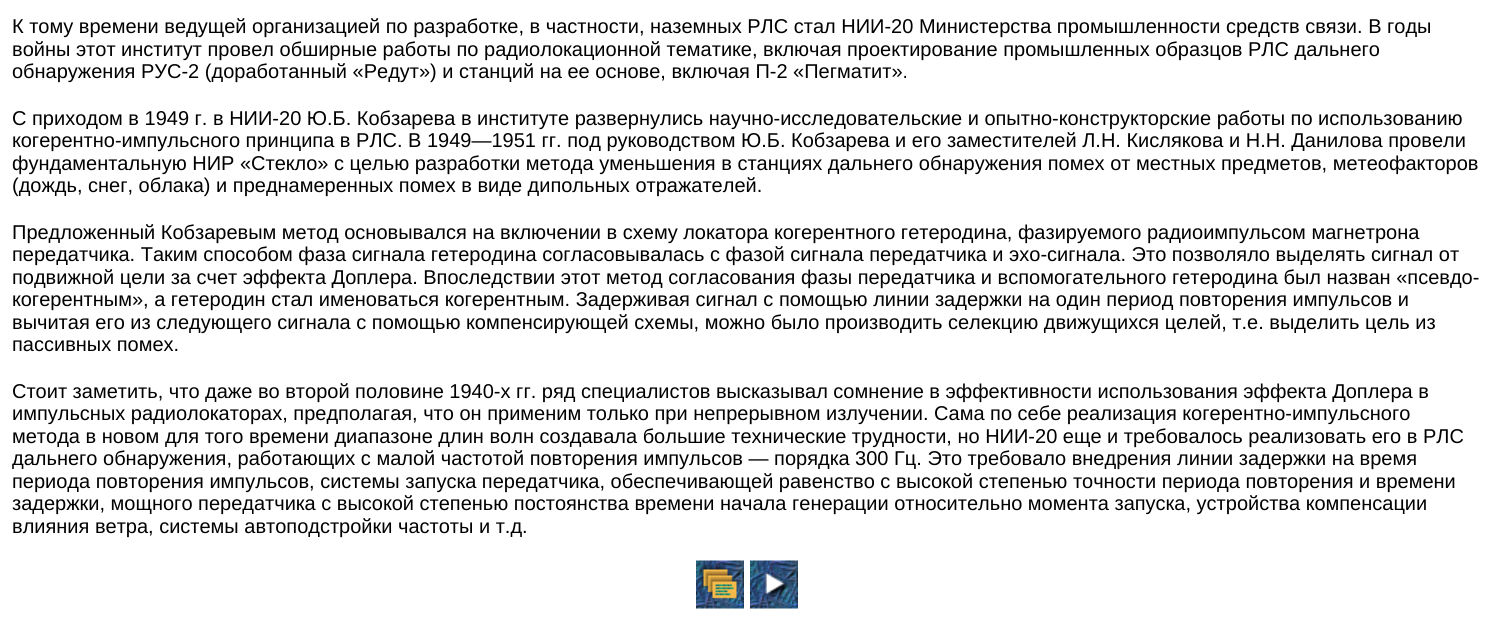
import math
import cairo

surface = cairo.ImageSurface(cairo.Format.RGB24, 1494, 639)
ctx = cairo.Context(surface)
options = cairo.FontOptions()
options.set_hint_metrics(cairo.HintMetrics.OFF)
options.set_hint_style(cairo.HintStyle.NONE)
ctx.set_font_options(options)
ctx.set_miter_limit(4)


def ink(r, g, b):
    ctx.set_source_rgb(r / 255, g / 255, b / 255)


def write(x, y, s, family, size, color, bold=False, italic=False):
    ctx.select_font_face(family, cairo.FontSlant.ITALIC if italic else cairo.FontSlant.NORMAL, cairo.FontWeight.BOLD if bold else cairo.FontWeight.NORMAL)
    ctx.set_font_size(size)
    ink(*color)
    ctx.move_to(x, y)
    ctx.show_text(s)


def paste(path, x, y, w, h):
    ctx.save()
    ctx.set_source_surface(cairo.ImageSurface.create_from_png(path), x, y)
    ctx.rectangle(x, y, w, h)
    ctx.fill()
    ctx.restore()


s1 = dict(family="Liberation Sans", size=20, color=(0, 0, 0))

ink(255, 255, 255)
ctx.paint()
write(12, 33, "К тому времени ведущей организацией по разработке, в частности, наземных РЛС стал НИИ-20 Министерства промышленности средств связи. В годы", **s1)
write(12, 56, "войны этот институт провел обширные работы по радиолокационной тематике, включая проектирование промышленных образцов РЛС дальнего", **s1)
write(12, 78, "обнаружения РУС-2 (доработанный «Редут») и станций на ее основе, включая П-2 «Пегматит».", **s1)
write(12, 125, "С приходом в 1949 г. в НИИ-20 Ю.Б. Кобзарева в институте развернулись научно-исследовательские и опытно-конструкторские работы по использованию", **s1)
write(12, 147, "когерентно-импульсного принципа в РЛС. В 1949—1951 гг. под руководством Ю.Б. Кобзарева и его заместителей Л.Н. Кислякова и Н.Н. Данилова провели", **s1)
write(12, 170, "фундаментальную НИР «Стекло» с целью разработки метода уменьшения в станциях дальнего обнаружения помех от местных предметов, метеофакторов", **s1)
write(12, 192, "(дождь, снег, облака) и преднамеренных помех в виде дипольных отражателей.", **s1)
write(12, 239, "Предложенный Кобзаревым метод основывался на включении в схему локатора когерентного гетеродина, фазируемого радиоимпульсом магнетрона", **s1)
write(12, 261, "передатчика. Таким способом фаза сигнала гетеродина согласовывалась с фазой сигнала передатчика и эхо-сигнала. Это позволяло выделять сигнал от", **s1)
write(12, 284, "подвижной цели за счет эффекта Доплера. Впоследствии этот метод согласования фазы передатчика и вспомогательного гетеродина был назван «псевдо-", **s1)
write(12, 306, "когерентным», а гетеродин стал именоваться когерентным. Задерживая сигнал с помощью линии задержки на один период повторения импульсов и", **s1)
write(12, 329, "вычитая его из следующего сигнала с помощью компенсирующей схемы, можно было производить селекцию движущихся целей, т.е. выделить цель из", **s1)
write(12, 351, "пассивных помех.", **s1)
write(12, 398, "Стоит заметить, что даже во второй половине 1940-х гг. ряд специалистов высказывал сомнение в эффективности использования эффекта Доплера в", **s1)
write(12, 420, "импульсных радиолокаторах, предполагая, что он применим только при непрерывном излучении. Сама по себе реализация когерентно-импульсного", **s1)
write(12, 443, "метода в новом для того времени диапазоне длин волн создавала большие технические трудности, но НИИ-20 еще и требовалось реализовать его в РЛС", **s1)
write(12, 465, "дальнего обнаружения, работающих с малой частотой повторения импульсов — порядка 300 Гц. Это требовало внедрения линии задержки на время", **s1)
write(12, 488, "периода повторения импульсов, системы запуска передатчика, обеспечивающей равенство с высокой степенью точности периода повторения и времени", **s1)
write(12, 510, "задержки, мощного передатчика с высокой степенью постоянства времени начала генерации относительно момента запуска, устройства компенсации", **s1)
write(12, 533, "влияния ветра, системы автоподстройки частоты и т.д.", **s1)
paste("pic1.png", 696, 560, 48, 49)
paste("pic2.png", 750, 560, 48, 49)
surface.write_to_png("screenshot.png")
